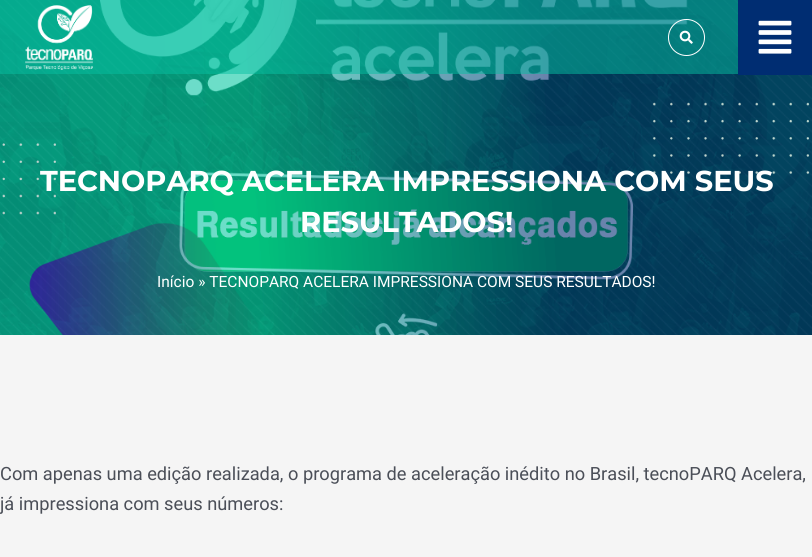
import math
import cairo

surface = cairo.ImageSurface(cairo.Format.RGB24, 812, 557)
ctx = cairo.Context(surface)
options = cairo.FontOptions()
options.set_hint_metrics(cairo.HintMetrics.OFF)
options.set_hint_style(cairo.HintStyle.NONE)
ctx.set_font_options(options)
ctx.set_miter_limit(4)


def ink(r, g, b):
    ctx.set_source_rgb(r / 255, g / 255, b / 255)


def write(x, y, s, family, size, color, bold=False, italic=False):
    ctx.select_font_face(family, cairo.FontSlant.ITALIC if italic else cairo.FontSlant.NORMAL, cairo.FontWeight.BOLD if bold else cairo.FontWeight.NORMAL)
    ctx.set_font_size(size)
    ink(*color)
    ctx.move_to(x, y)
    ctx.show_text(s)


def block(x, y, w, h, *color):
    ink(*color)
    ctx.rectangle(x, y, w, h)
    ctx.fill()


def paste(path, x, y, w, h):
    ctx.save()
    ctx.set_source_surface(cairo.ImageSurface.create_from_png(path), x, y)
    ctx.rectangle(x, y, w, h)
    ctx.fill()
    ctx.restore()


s1 = dict(family="Montserrat", size=28.75, color=(255, 255, 255), bold=True)
s2 = dict(family="Roboto", size=15.5, color=(255, 255, 255))
s3 = dict(family="Roboto", size=18.25, color=(75, 79, 88))

ink(245, 245, 245)
ctx.paint()
paste("pic4.png", 0, 0, 812, 335)
paste("pic5.png", 0, 0, 812, 335)
ctx.set_source_rgba(0.031, 0.753, 0.639, 0.5)
ctx.rectangle(0, 0, 738, 74)
ctx.fill()
paste("pic1.png", 25, 5, 68, 65)
ctx.arc(686.5, 37.5, 18, 0, 2 * math.pi)
ink(255, 255, 255)
ctx.set_line_width(1)
ctx.stroke()
paste("pic2.png", 679, 30, 14, 14)
block(738, 0, 74, 75, 0, 45, 114)
paste("pic3.png", 758, 20, 34, 34)
write(40, 191, "TECNOPARQ ACELERA IMPRESSIONA COM SEUS", **s1)
write(300, 232, "RESULTADOS!", **s1)
write(157, 287, "Início » TECNOPARQ ACELERA IMPRESSIONA COM SEUS RESULTADOS!", **s2)
write(0, 480, "Com apenas uma edição realizada, o programa de aceleração inédito no Brasil, tecnoPARQ Acelera,", **s3)
write(0, 510, "já impressiona com seus números:", **s3)
surface.write_to_png("screenshot.png")
